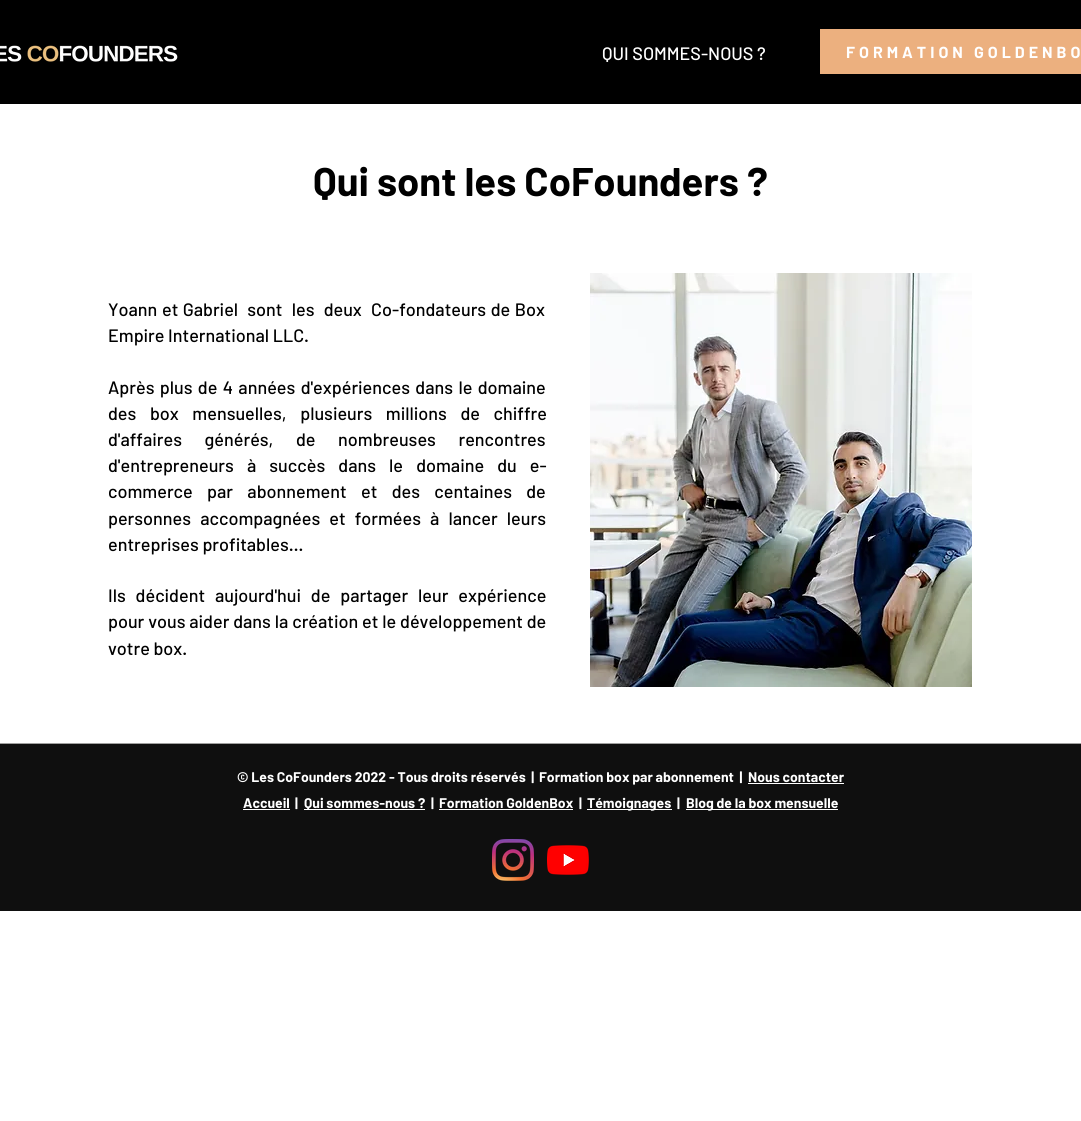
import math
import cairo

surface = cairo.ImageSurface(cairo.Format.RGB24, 1081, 1121)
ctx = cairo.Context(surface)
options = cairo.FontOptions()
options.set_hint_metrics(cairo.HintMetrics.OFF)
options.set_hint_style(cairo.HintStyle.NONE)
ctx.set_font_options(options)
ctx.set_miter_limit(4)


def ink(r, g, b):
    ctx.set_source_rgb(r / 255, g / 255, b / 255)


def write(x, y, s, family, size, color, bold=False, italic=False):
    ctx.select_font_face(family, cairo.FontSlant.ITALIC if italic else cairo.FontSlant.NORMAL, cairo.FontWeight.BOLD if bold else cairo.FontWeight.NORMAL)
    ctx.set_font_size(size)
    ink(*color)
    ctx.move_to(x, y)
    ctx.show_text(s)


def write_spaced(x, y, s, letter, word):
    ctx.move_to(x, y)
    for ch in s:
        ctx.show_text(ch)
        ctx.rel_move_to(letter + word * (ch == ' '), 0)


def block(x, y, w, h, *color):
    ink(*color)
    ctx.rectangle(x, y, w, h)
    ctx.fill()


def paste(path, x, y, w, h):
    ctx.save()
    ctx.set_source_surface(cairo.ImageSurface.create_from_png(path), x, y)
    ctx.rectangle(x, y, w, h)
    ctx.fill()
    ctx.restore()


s1 = dict(family="Barlow Medium", size=18, color=(255, 255, 255))
s2 = dict(family="Barlow", size=40, color=(0, 0, 0), bold=True)
s3 = dict(family="Barlow Medium", size=18, color=(0, 0, 0))
s4 = dict(family="Barlow", size=14, color=(255, 255, 255), bold=True)

ink(255, 255, 255)
ctx.paint()
block(0, 0, 1081, 104, 0, 0, 0)
paste("pic1.png", 0, 45, 178, 17)
write(602, 60, "QUI SOMMES-NOUS ?", **s1)
block(820, 29, 261, 45, 236, 176, 127)
ctx.select_font_face("Barlow", cairo.FontSlant.NORMAL, cairo.FontWeight.BOLD)
ctx.set_font_size(16)
ink(255, 255, 255)
write_spaced(846, 58, "FORMATION GOLDENBO", 4, 0)
write(313, 196, "Qui sont les CoFounders ?", **s2)
ctx.select_font_face("Barlow Medium")
ctx.set_font_size(18)
write_spaced(108, 316, "Yoann et Gabriel  sont  les  deux  Co-fondateurs de Box", 0, 1)
write(108, 342, "Empire International LLC.", **s3)
write_spaced(108, 394, "Après plus de 4 années d'expériences dans le domaine", 0, 1.75)
write_spaced(108, 420, "des box mensuelles, plusieurs millions de chiffre", 0, 10)
write_spaced(108, 446, "d'affaires générés, de nombreuses rencontres", 0, 19)
write_spaced(108, 472, "d'entrepreneurs à succès dans le domaine du e-", 0, 9.5)
write_spaced(108, 498, "commerce par abonnement et des centaines de", 0, 10.75)
write_spaced(108, 525, "personnes accompagnées et formées à lancer leurs", 0, 5.5)
write(108, 551, "entreprises profitables…", **s3)
write_spaced(108, 602, "Ils décident aujourd'hui de partager leur expérience", 0, 6.25)
write_spaced(108, 628, "pour vous aider dans la création et le développement de", 0, 0.25)
write(108, 655, "votre box.", **s3)
paste("pic2.png", 590, 273, 382, 414)
block(0, 744, 1081, 167, 15, 15, 15)
block(0, 743, 1081, 1, 160, 160, 159)
write(237, 782, "© Les CoFounders 2022 - Tous droits réservés  |", **s4)
write(539, 782, "Formation box par abonnement  |", **s4)
write(748, 782, "Nous contacter", **s4)
block(748, 783, 96, 1, 255, 255, 255)
write(243, 808, "Accueil", **s4)
block(243, 809, 47, 1, 255, 255, 255)
write(295, 808, "|", **s4)
block(304, 809, 121, 1, 255, 255, 255)
write(304, 808, "Qui sommes-nous ?", **s4)
write(431, 808, "|", **s4)
write(439, 808, "Formation GoldenBox", **s4)
block(439, 809, 134, 1, 255, 255, 255)
write(579, 808, "|", **s4)
block(587, 809, 85, 1, 255, 255, 255)
write(587, 808, "Témoignages", **s4)
write(677, 808, "|", **s4)
block(686, 809, 152, 1, 255, 255, 255)
write(686, 808, "Blog de la box mensuelle", **s4)
paste("pic3.png", 492, 839, 42, 42)
paste("pic4.png", 547, 845, 42, 30)
surface.write_to_png("screenshot.png")
